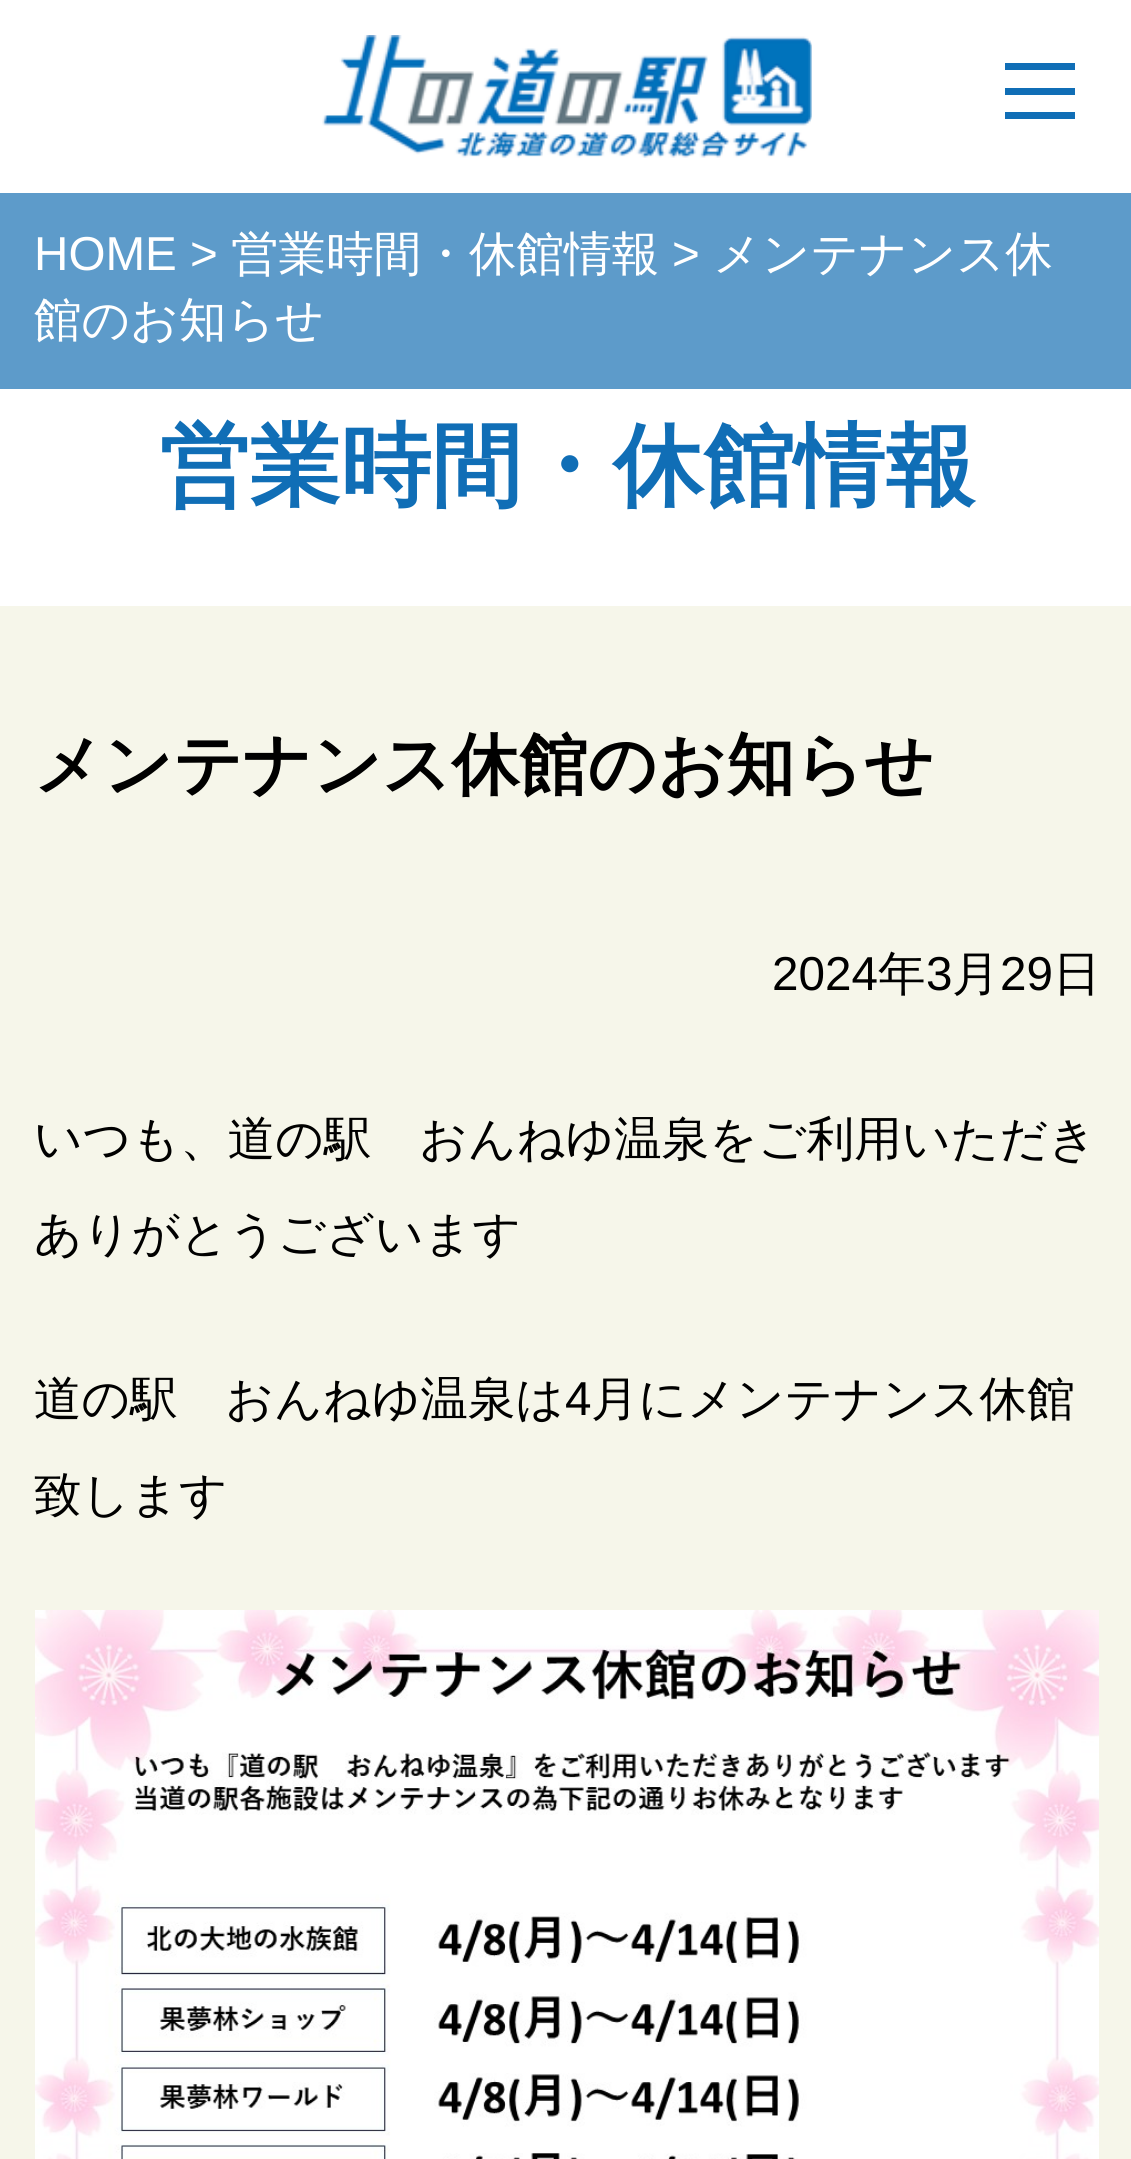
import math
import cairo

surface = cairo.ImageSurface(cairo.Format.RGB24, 1131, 2159)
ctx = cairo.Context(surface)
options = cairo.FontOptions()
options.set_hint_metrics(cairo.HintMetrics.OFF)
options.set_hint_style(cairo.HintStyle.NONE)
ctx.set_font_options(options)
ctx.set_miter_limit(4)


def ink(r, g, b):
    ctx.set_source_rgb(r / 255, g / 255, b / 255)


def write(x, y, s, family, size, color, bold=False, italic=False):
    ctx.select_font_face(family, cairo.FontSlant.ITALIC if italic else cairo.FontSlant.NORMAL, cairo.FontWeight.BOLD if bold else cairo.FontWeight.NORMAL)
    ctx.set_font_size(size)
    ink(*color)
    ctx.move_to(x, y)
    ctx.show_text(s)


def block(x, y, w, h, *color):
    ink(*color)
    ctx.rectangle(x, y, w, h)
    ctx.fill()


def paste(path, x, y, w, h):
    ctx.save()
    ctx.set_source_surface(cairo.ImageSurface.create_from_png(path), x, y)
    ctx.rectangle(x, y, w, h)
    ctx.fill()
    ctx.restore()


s1 = dict(family="Liberation Sans", size=47.6, color=(255, 255, 255))
s2 = dict(family="WenQuanYi Zen Hei Medium", size=47.6, color=(255, 255, 255))
s3 = dict(family="WenQuanYi Zen Hei", size=90.75, color=(16, 110, 182), bold=True)
s4 = dict(family="WenQuanYi Zen Hei", size=68, color=(0, 0, 0), bold=True)
s5 = dict(family="Liberation Sans", size=47.6, color=(0, 0, 0))
s6 = dict(family="WenQuanYi Zen Hei Medium", size=47.6, color=(0, 0, 0))

ink(246, 246, 234)
ctx.paint()
block(0, 0, 1131, 193, 255, 255, 255)
paste("pic1.png", 322, 35, 490, 123)
block(1005, 63, 70, 7, 16, 110, 182)
block(1005, 88, 70, 7, 16, 110, 182)
block(1005, 112, 70, 7, 16, 110, 182)
block(0, 193, 1131, 196, 93, 155, 202)
write(34, 270, "HOME >", **s1)
write(231, 270, "営業時間・休館情報", **s2)
write(672, 270, ">", **s1)
write(713, 270, "メンテナンス休", **s2)
write(34, 336, "館のお知らせ", **s2)
block(0, 389, 1131, 217, 255, 255, 255)
write(159, 497, "営業時間・休館情報", **s3)
write(34, 788, "メンテナンス休館のお知らせ", **s4)
write(772, 990, "2024", **s5)
write(878, 990, "年", **s6)
write(926, 990, "3", **s5)
write(952, 990, "月", **s6)
write(1000, 990, "29", **s5)
write(1053, 990, "日", **s6)
write(34, 1155, "いつも、道の駅　おんねゆ温泉をご利用いただき", **s6)
write(34, 1250, "ありがとうございます", **s6)
write(34, 1415, "道の駅　おんねゆ温泉は", **s6)
write(565, 1415, "4", **s5)
write(591, 1415, "月にメンテナンス休館", **s6)
write(34, 1511, "致します", **s6)
paste("pic2.png", 35, 1610, 1064, 549)
surface.write_to_png("screenshot.png")
